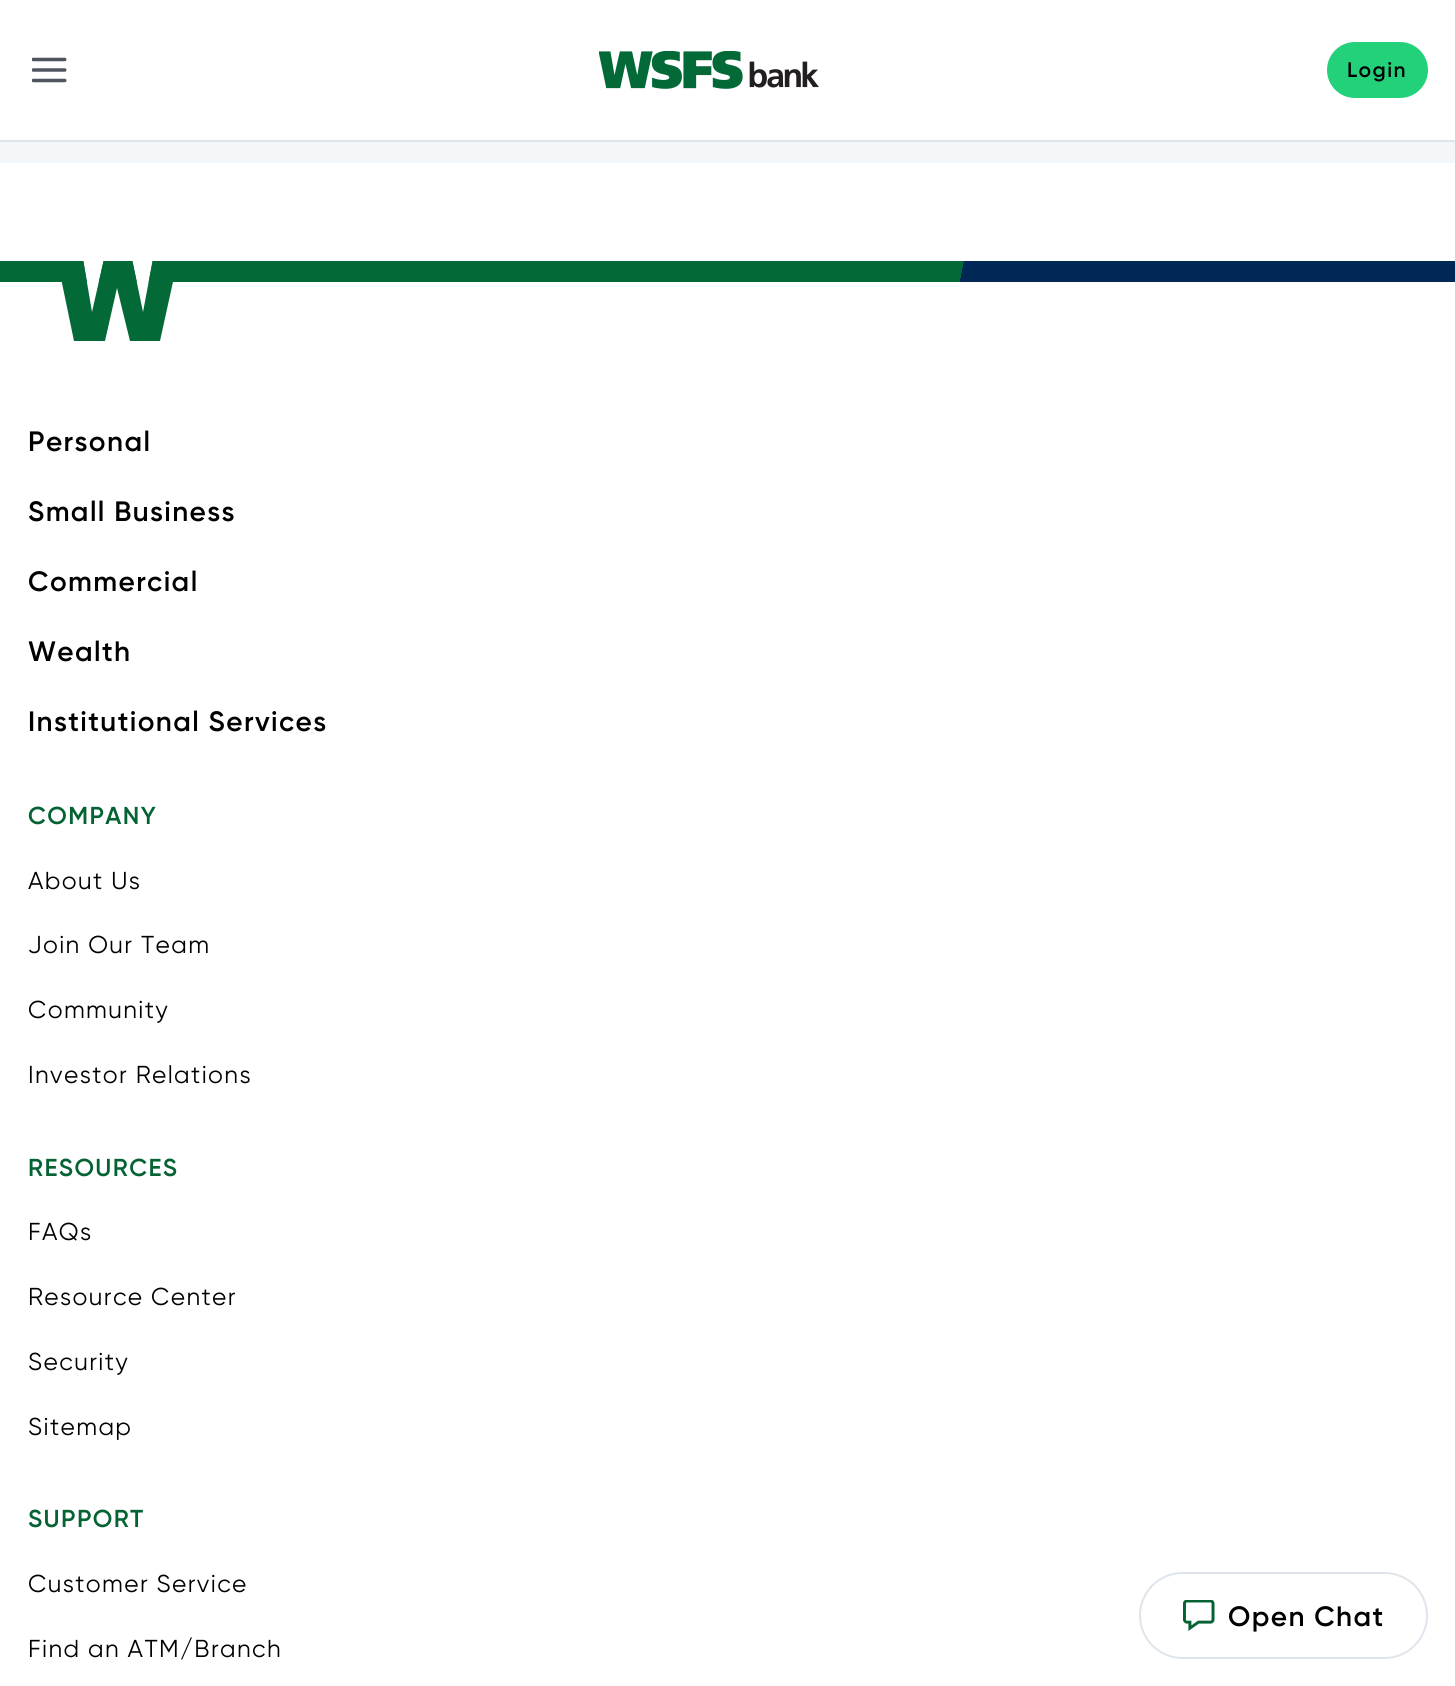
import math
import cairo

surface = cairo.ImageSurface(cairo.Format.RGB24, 1455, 1686)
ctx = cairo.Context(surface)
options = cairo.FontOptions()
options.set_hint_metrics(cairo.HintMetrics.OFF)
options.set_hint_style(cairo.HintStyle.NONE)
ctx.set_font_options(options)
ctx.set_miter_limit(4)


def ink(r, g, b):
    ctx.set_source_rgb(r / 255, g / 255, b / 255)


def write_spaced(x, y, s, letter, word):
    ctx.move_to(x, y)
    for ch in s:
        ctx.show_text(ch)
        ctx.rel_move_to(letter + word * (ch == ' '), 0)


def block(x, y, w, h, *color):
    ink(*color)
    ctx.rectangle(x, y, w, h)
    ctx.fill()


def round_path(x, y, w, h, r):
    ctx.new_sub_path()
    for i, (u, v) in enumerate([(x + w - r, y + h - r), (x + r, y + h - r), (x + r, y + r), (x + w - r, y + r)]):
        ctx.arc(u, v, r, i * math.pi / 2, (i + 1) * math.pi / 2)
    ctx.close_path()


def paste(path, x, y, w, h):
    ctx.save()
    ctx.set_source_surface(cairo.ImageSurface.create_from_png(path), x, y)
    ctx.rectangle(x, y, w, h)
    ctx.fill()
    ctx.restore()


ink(255, 255, 255)
ctx.paint()
ctx.rectangle(-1, -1, 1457, 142)
ink(223, 229, 236)
ctx.stroke()
paste("pic1.png", 32, 57, 35, 26)
paste("pic2.png", 599, 51, 220, 38)
ink(35, 209, 122)
round_path(1327, 42, 101, 56, 28)
ctx.fill()
ctx.select_font_face("Gilroy SemiBold")
ctx.set_font_size(21)
ink(0, 0, 0)
write_spaced(1347, 77, "Login", 1.4, 0)
block(0, 142, 1455, 21, 244, 247, 250)
gradient = cairo.LinearGradient(29, 123, 1427, 420)
gradient.add_color_stop_rgba(0, 0.012, 0.416, 0.216, 1)
gradient.add_color_stop_rgba(0.66, 0.012, 0.416, 0.216, 1)
gradient.add_color_stop_rgba(0.66, 0, 0.157, 0.337, 1)
gradient.add_color_stop_rgba(1, 0, 0.157, 0.337, 1)
ctx.set_source(gradient)
ctx.rectangle(0, 261, 1455, 21)
ctx.fill()
ctx.save()
ctx.rectangle(56, 261, 123, 80)
ctx.clip()
ink(255, 255, 255)
ctx.new_path()
ctx.move_to(92, 312)
ctx.line_to(104, 259)
ctx.line_to(83, 259)
ctx.close_path()
ctx.fill()
ctx.new_path()
ctx.move_to(143, 312)
ctx.line_to(153, 259)
ctx.line_to(132, 259)
ctx.close_path()
ctx.fill()
ink(3, 106, 55)
ctx.new_path()
ctx.move_to(153, 259)
ctx.line_to(143, 312)
ctx.line_to(132, 259)
ctx.line_to(104, 259)
ctx.line_to(92, 312)
ctx.line_to(83, 259)
ctx.line_to(57, 259)
ctx.line_to(74, 341)
ctx.line_to(105, 341)
ctx.line_to(117, 288)
ctx.line_to(130, 341)
ctx.line_to(160, 341)
ctx.line_to(178, 259)
ctx.close_path()
ctx.fill()
ctx.restore()
ctx.set_font_size(28)
ink(0, 0, 0)
write_spaced(28, 451, "Personal", 1.4, 0)
write_spaced(28, 521, "Small Business", 1.4, 0)
write_spaced(28, 591, "Commercial", 1.4, 0)
write_spaced(28, 661, "Wealth", 1.4, 0)
write_spaced(28, 731, "Institutional Services", 1.4, 0)
ctx.set_font_size(24.5)
ink(4, 98, 51)
write_spaced(28, 824, "COMPANY", 1.4, 0)
ctx.select_font_face("gilroy")
ink(0, 0, 0)
write_spaced(28, 889, "About Us", 1.4, 0)
write_spaced(28, 953, "Join Our Team", 1.4, 0)
write_spaced(28, 1018, "Community", 1.4, 0)
write_spaced(28, 1083, "Investor Relations", 1.4, 0)
ctx.select_font_face("Gilroy SemiBold")
ink(4, 98, 51)
write_spaced(28, 1176, "RESOURCES", 1.4, 0)
ctx.select_font_face("gilroy")
ink(0, 0, 0)
write_spaced(28, 1240, "FAQs", 1.4, 0)
write_spaced(28, 1305, "Resource Center", 1.4, 0)
write_spaced(28, 1370, "Security", 1.4, 0)
write_spaced(28, 1435, "Sitemap", 1.4, 0)
ctx.select_font_face("Gilroy SemiBold")
ink(4, 98, 51)
write_spaced(28, 1527, "SUPPORT", 1.4, 0)
ctx.select_font_face("gilroy")
ink(0, 0, 0)
write_spaced(28, 1592, "Customer Service", 1.4, 0)
write_spaced(28, 1657, "Find an ATM/Branch", 1.4, 0)
round_path(1140, 1573, 287, 85, 42.5)
ink(223, 229, 236)
ctx.stroke()
paste("pic3.png", 1183, 1600, 32, 31)
ctx.select_font_face("Gilroy SemiBold")
ctx.set_font_size(28)
ink(0, 0, 0)
write_spaced(1228, 1626, "Open Chat", 1.4, 0)
surface.write_to_png("screenshot.png")
